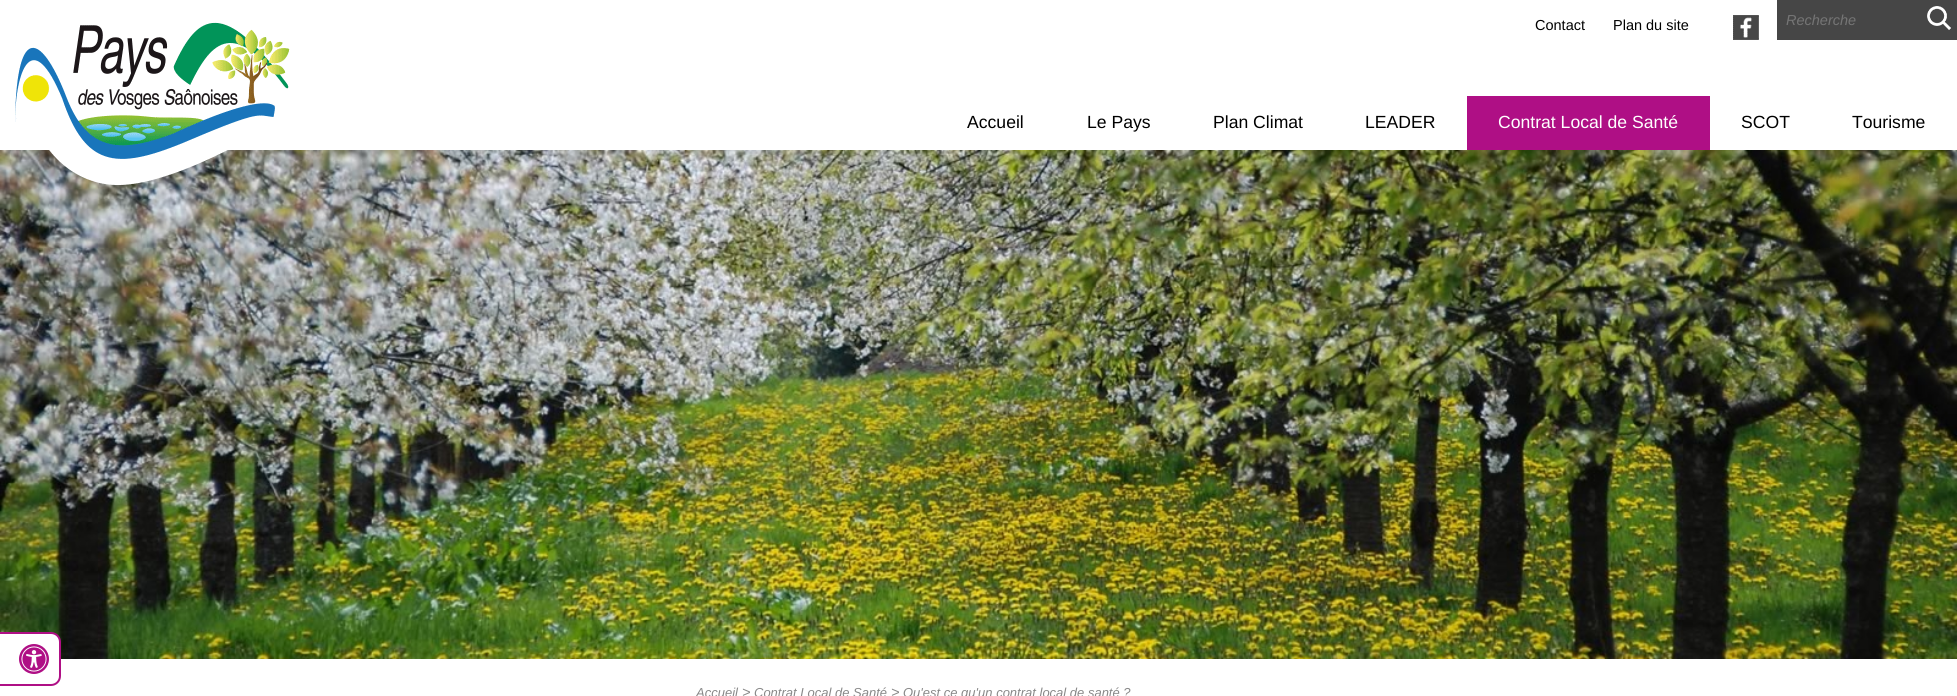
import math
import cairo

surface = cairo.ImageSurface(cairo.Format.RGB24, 1957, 696)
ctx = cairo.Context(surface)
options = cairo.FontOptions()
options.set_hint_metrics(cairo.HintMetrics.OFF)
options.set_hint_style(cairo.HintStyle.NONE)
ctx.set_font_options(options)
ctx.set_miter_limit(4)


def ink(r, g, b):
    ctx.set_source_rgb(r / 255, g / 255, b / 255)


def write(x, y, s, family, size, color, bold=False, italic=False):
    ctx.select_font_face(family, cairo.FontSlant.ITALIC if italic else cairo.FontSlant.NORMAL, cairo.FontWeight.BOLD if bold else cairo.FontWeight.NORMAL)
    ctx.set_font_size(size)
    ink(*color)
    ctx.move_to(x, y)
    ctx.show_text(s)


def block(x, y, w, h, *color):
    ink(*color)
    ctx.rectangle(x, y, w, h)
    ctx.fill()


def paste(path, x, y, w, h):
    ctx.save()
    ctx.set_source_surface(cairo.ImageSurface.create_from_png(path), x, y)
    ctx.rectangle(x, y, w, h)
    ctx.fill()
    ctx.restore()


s1 = dict(family="Liberation Sans", size=14.5, color=(0, 0, 0))
s2 = dict(family="Liberation Sans", size=14.5, color=(117, 117, 117), italic=True)
s3 = dict(family="Liberation Sans", size=17.6, color=(0, 0, 0))
s4 = dict(family="Liberation Sans", size=17.6, color=(255, 255, 255))
s5 = dict(family="Liberation Sans", size=13, color=(136, 136, 136), italic=True)
s6 = dict(family="Liberation Sans", size=14.5, color=(136, 136, 136), italic=True)

ink(255, 255, 255)
ctx.paint()
paste("pic5.png", 0, 150, 1957, 509)
ink(255, 255, 255)
ctx.new_path()
ctx.move_to(-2, 633)
ctx.line_to(51, 633)
ctx.curve_to(56, 633, 60, 637, 60, 642)
ctx.line_to(60, 676)
ctx.curve_to(60, 681, 56, 685, 51, 685)
ctx.line_to(-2, 685)
ctx.close_path()
ctx.fill_preserve()
ink(175, 15, 133)
ctx.stroke()
paste("pic1.png", 19, 644, 30, 30)
paste("pic2.png", 15, 22, 275, 163)
write(1535, 30, "Contact", **s1)
write(1613, 30, "Plan du site", **s1)
paste("pic3.png", 1733, 15, 26, 25)
block(1777, 0, 180, 40, 70, 70, 70)
write(1786, 25, "Recherche", **s2)
paste("pic4.png", 1927, 6, 24, 24)
write(967, 128, "Accueil", **s3)
write(1087, 128, "Le Pays", **s3)
write(1213, 128, "Plan Climat", **s3)
write(1365, 128, "LEADER", **s3)
block(1467, 96, 243, 54, 175, 15, 133)
write(1498, 128, "Contrat Local de Santé", **s4)
write(1741, 128, "SCOT", **s3)
write(1852, 128, "Tourisme", **s3)
write(696, 697, "Accueil", **s5)
write(742, 697, ">", **s6)
write(754, 697, "Contrat Local de Santé", **s5)
write(891, 697, ">", **s6)
write(903, 697, "Qu'est ce qu'un contrat local de santé ?", **s5)
surface.write_to_png("screenshot.png")
